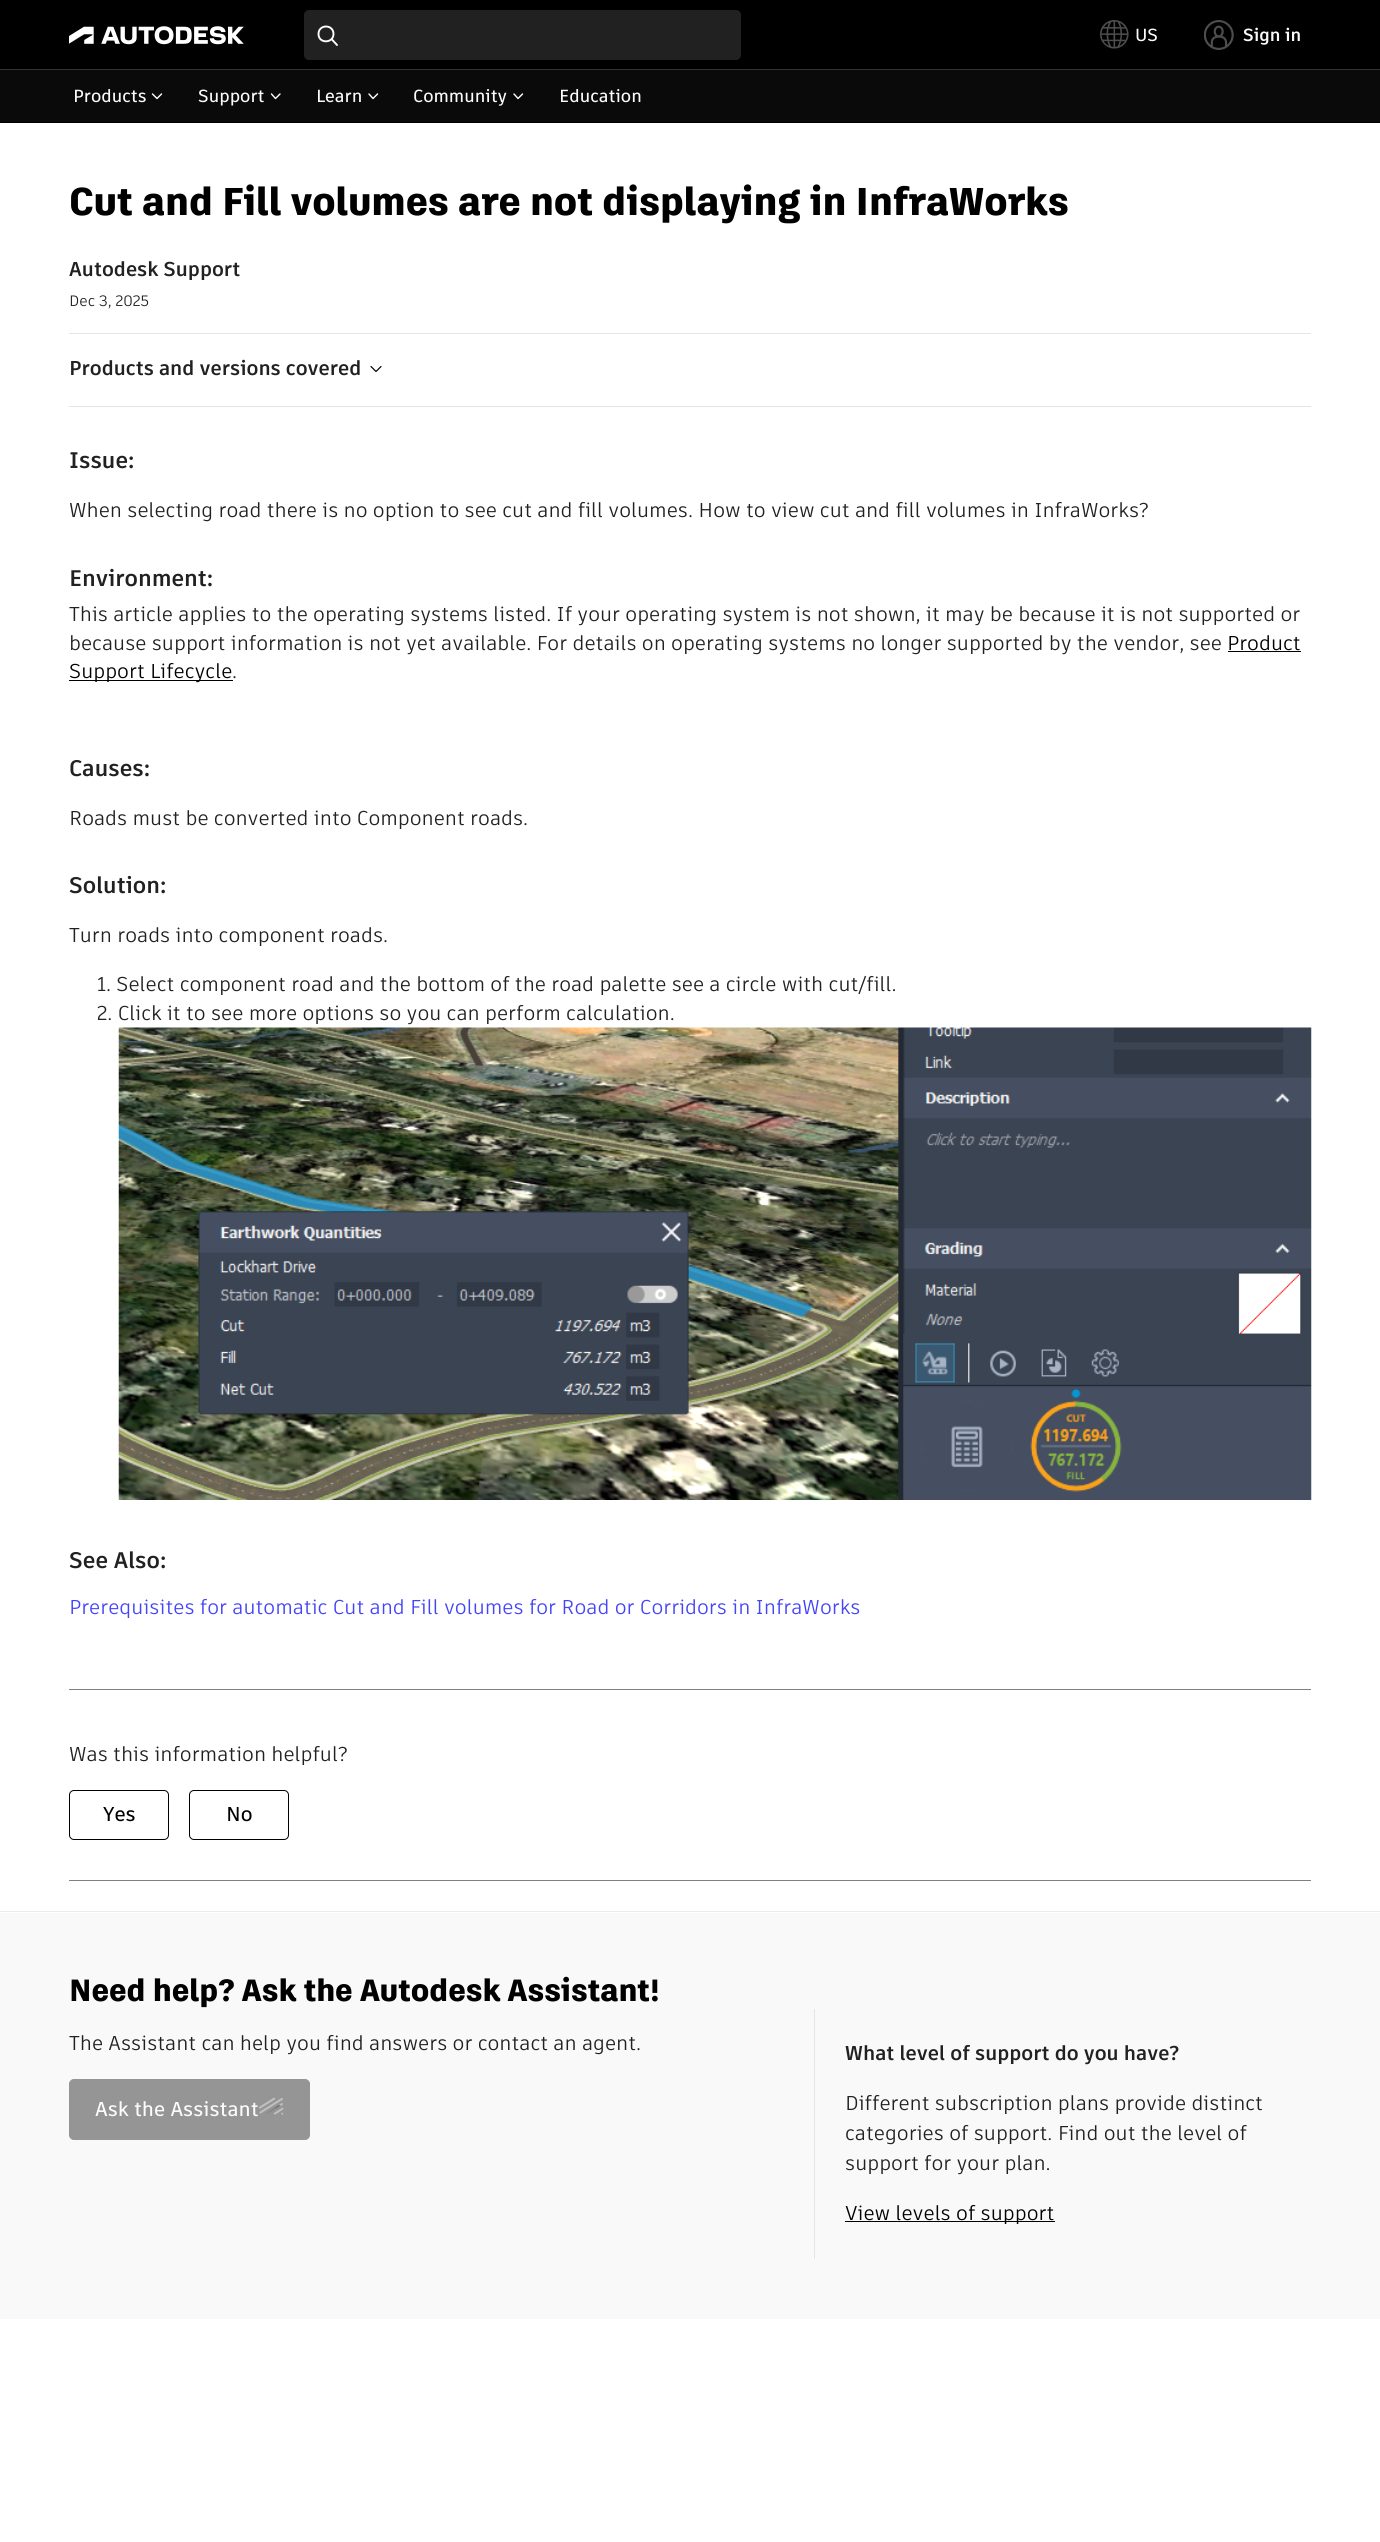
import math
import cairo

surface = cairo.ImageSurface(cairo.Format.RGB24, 1380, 2542)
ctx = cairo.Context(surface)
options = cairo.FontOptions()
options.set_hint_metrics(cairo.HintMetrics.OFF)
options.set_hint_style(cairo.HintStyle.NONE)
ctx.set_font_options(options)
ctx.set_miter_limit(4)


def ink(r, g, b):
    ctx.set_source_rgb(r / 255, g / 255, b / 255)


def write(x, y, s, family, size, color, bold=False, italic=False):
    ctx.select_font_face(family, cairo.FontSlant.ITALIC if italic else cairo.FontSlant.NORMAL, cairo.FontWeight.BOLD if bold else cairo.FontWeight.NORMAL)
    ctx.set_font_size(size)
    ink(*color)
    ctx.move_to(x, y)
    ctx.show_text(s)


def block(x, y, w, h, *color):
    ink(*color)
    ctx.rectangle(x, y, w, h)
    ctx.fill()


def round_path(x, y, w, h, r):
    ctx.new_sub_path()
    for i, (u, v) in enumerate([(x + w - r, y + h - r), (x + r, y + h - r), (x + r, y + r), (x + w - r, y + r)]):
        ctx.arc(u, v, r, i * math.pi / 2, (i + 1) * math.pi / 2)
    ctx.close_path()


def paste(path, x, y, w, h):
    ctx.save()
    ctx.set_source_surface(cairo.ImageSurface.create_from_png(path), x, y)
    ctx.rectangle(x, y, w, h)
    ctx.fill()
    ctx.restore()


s1 = dict(family="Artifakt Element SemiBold", size=17.5, color=(251, 251, 251))
s2 = dict(family="Artifakt Element", size=17.5, color=(251, 251, 251), bold=True)
s3 = dict(family="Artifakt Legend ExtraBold", size=38.6, color=(0, 0, 0))
s4 = dict(family="Artifakt Element", size=20, color=(33, 33, 33), bold=True)
s5 = dict(family="Artifakt Element", size=15, color=(33, 33, 33))
s6 = dict(family="Artifakt Element", size=22.5, color=(33, 33, 33), bold=True)
s7 = dict(family="Artifakt Element", size=20, color=(33, 33, 33))
s8 = dict(family="Artifakt Element", size=20, color=(0, 0, 0))
s9 = dict(family="Artifakt Element", size=20, color=(68, 68, 248))
s10 = dict(family="Artifakt Element SemiBold", size=20, color=(0, 0, 0))
s11 = dict(family="Artifakt Legend ExtraBold", size=30.6, color=(0, 0, 0))
s12 = dict(family="Artifakt Element SemiBold", size=20, color=(251, 251, 251))

ink(255, 255, 255)
ctx.paint()
block(0, 0, 1380, 123, 0, 0, 0)
block(0, 70, 1380, 52, 10, 10, 10)
paste("pic1.png", 69, 26, 175, 19)
ink(33, 33, 33)
round_path(304, 10, 437, 50, 5)
ctx.fill()
ctx.new_path()
ctx.move_to(331.5, 39)
ctx.line_to(337, 45)
ctx.move_to(333.5, 34)
ctx.curve_to(333.5, 43.5, 318.5, 44, 318.5, 34)
ctx.curve_to(318.5, 24, 333.5, 24, 333.5, 34)
ctx.close_path()
ink(255, 255, 255)
ctx.set_line_width(1.9)
ctx.set_line_cap(cairo.LineCap.ROUND)
ctx.stroke()
paste("pic2.png", 1100, 20, 29, 29)
write(1135, 41, "US", **s1)
paste("pic3.png", 1204, 20, 30, 30)
write(1243, 41, "Sign in", **s2)
block(0, 69, 1380, 1, 51, 51, 51)
write(73, 102, "Products", **s1)
ctx.new_path()
ctx.move_to(161.5, 94)
ctx.line_to(157, 98.5)
ctx.line_to(152.5, 94)
ink(255, 255, 255)
ctx.set_line_width(1.4)
ctx.set_line_join(cairo.LineJoin.ROUND)
ctx.stroke()
write(198, 102, "Support", **s1)
ctx.new_path()
ctx.move_to(280, 94)
ctx.line_to(275.5, 98.5)
ctx.line_to(271.5, 94)
ink(255, 255, 255)
ctx.stroke()
write(316, 102, "Learn", **s1)
ctx.new_path()
ctx.move_to(377.5, 94)
ctx.line_to(373, 98.5)
ctx.line_to(369, 94)
ink(255, 255, 255)
ctx.stroke()
write(413, 102, "Community", **s1)
ctx.new_path()
ctx.move_to(522.5, 94)
ctx.line_to(518, 98.5)
ctx.line_to(514, 94)
ink(255, 255, 255)
ctx.stroke()
write(559, 102, "Education", **s1)
write(69, 215, "Cut and Fill volumes are not displaying in InfraWorks", **s3)
write(69, 276, "Autodesk Support", **s4)
write(69, 306, "Dec 3, 2025", **s5)
block(69, 333, 1242, 1, 229, 229, 229)
write(69, 375, "Products and versions covered", **s4)
ctx.new_path()
ctx.move_to(381, 366.5)
ctx.line_to(376, 371.5)
ctx.line_to(371, 366.5)
ink(0, 0, 0)
ctx.set_line_width(1.2)
ctx.stroke()
block(69, 406, 1242, 1, 229, 229, 229)
write(69, 468, "Issue:", **s6)
write(69, 517, "When selecting road there is no option to see cut and fill volumes. How to view cut and fill volumes in InfraWorks?", **s7)
write(69, 586, "Environment:", **s6)
write(69, 621, "This article applies to the operating systems listed. If your operating system is not shown, it may be because it is not supported or", **s7)
write(69, 650, "because support information is not yet available. For details on operating systems no longer supported by the vendor, see", **s7)
write(1227, 650, "Product", **s8)
block(1228, 651, 73, 1, 0, 0, 0)
block(69, 680, 164, 1, 0, 0, 0)
write(69, 678, "Support Lifecycle", **s8)
write(232, 678, ".", **s7)
write(69, 776, "Causes:", **s6)
write(69, 825, "Roads must be converted into Component roads.", **s7)
write(69, 893, "Solution:", **s6)
write(69, 942, "Turn roads into component roads.", **s7)
write(97, 991, "1. Select component road and the bottom of the road palette see a circle with cut/fill.", **s7)
write(97, 1020, "2. Click it to see more options so you can perform calculation.", **s7)
paste("pic4.png", 118, 1027, 1194, 473)
write(69, 1568, "See Also:", **s6)
write(69, 1614, "Prerequisites for automatic Cut and Fill volumes for Road or Corridors in InfraWorks", **s9)
block(69, 1689, 1242, 1, 128, 128, 128)
write(69, 1761, "Was this information helpful?", **s7)
round_path(69.5, 1790.5, 99, 49, 4.5)
ink(0, 0, 0)
ctx.set_line_width(1)
ctx.set_line_cap(cairo.LineCap.BUTT)
ctx.set_line_join(cairo.LineJoin.MITER)
ctx.stroke()
write(103, 1821, "Yes", **s10)
round_path(189.5, 1790.5, 99, 49, 4.5)
ctx.stroke()
write(226, 1821, "No", **s10)
block(69, 1880, 1242, 1, 128, 128, 128)
block(0, 1911, 1380, 1, 235, 235, 235)
block(0, 1913, 1380, 406, 249, 249, 249)
write(69, 2001, "Need help? Ask the Autodesk Assistant!", **s11)
write(69, 2050, "The Assistant can help you find answers or contact an agent.", **s7)
ink(149, 149, 149)
round_path(69.5, 2079.5, 240, 60, 4.5)
ctx.fill_preserve()
ctx.stroke()
write(95, 2116, "Ask the Assistant", **s12)
paste("pic5.png", 259, 2097, 25, 18)
block(814, 2009, 1, 250, 229, 229, 229)
write(845, 2060, "What level of support do you have?", **s4)
write(845, 2110, "Different subscription plans provide distinct", **s7)
write(845, 2140, "categories of support. Find out the level of", **s7)
write(845, 2170, "support for your plan.", **s7)
block(845, 2221, 210, 1, 0, 0, 0)
write(845, 2220, "View levels of support", **s8)
surface.write_to_png("screenshot.png")
